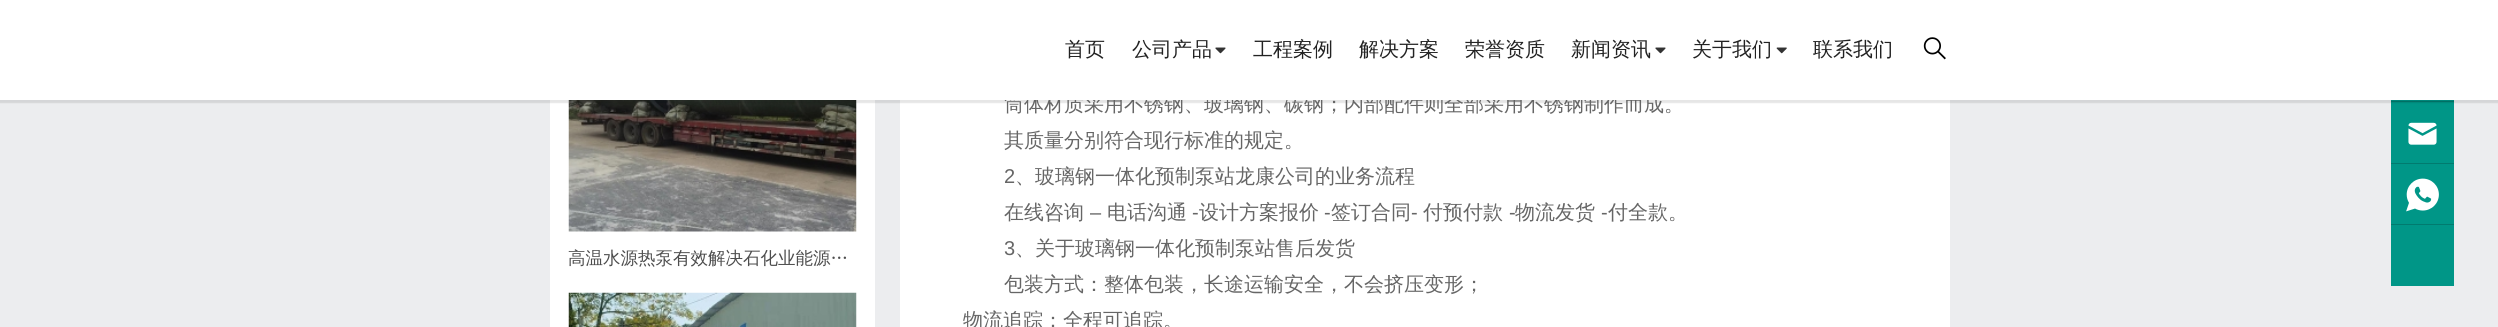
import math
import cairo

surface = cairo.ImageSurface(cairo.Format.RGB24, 2498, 327)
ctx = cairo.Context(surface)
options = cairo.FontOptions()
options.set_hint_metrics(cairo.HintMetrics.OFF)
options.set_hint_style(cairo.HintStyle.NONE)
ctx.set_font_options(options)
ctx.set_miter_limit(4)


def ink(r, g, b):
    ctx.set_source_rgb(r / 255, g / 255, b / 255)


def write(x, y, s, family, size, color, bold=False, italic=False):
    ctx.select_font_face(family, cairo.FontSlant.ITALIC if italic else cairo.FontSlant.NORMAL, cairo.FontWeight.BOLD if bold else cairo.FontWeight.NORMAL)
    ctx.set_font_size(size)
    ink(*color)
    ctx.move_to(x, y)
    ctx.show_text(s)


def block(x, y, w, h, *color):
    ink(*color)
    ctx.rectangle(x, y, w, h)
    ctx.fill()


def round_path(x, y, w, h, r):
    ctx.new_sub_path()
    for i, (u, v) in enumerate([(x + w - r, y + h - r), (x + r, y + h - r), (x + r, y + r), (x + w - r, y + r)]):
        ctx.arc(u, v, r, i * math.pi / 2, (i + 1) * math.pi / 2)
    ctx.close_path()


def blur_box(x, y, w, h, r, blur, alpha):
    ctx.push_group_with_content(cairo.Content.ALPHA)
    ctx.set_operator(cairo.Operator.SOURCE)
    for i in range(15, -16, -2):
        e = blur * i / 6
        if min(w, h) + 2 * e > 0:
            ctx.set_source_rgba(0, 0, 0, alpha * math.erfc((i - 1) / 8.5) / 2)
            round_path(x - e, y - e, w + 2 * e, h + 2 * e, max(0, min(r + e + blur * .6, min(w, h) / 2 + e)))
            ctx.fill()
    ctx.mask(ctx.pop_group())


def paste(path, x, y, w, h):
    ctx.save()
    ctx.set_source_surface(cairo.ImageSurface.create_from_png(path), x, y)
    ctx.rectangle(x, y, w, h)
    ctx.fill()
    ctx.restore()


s1 = dict(family="WenQuanYi Zen Hei Medium", size=20, color=(102, 102, 102))
s2 = dict(family="WenQuanYi Zen Hei Medium", size=20, color=(34, 34, 34))
s3 = dict(family="WenQuanYi Zen Hei Medium", size=17.5, color=(77, 77, 77))
s4 = dict(family="Liberation Sans", size=20, color=(102, 102, 102))

ink(236, 237, 239)
ctx.paint()
block(550, 100, 325, 227, 255, 255, 255)
paste("pic4.png", 568, 100, 289, 132)
block(900, 100, 1050, 227, 255, 255, 255)
block(2391, 100, 63, 63, 0, 150, 135)
block(2391, 101, 63, 1, 1, 123, 111)
ink(0, 0, 0)
blur_box(-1, 0, 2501, 103, 0, 0.5, 0.1)
write(1004, 111, "筒体材质采用不锈钢、玻璃钢、碳钢；内部配件则全部采用不锈钢制作而成。", **s1)
block(0, 0, 2498, 100, 255, 255, 255)
write(1065, 56, "首页", **s2)
write(1132, 56, "公司产品", **s2)
paste("pic1.png", 1215, 47, 11, 7)
write(1253, 56, "工程案例", **s2)
write(1359, 56, "解决方案", **s2)
write(1465, 56, "荣誉资质", **s2)
write(1571, 56, "新闻资讯", **s2)
paste("pic1.png", 1655, 47, 11, 7)
write(1692, 56, "关于我们", **s2)
paste("pic2.png", 1776, 47, 11, 7)
write(1813, 56, "联系我们", **s2)
paste("pic3.png", 1923, 37, 23, 23)
write(568, 264, "高温水源热泵有效解决石化业能源…", **s3)
paste("pic5.png", 568, 292, 289, 35)
write(1004, 147, "其质量分别符合现行标准的规定。", **s1)
write(1004, 183, "2", **s4)
write(1015, 183, "、玻璃钢一体化预制泵站龙康公司的业务流程", **s1)
write(1004, 219, "在线咨询", **s1)
write(1090, 219, "–", **s4)
write(1107, 219, "电话沟通", **s1)
write(1192, 219, "-", **s4)
write(1199, 219, "设计方案报价", **s1)
write(1324, 219, "-", **s4)
write(1331, 219, "签订合同", **s1)
write(1411, 219, "-", **s4)
write(1423, 219, "付预付款", **s1)
write(1509, 219, "-", **s4)
write(1515, 219, "物流发货", **s1)
write(1601, 219, "-", **s4)
write(1608, 219, "付全款。", **s1)
write(1004, 255, "3", **s4)
write(1015, 255, "、关于玻璃钢一体化预制泵站售后发货", **s1)
write(1004, 291, "包装方式：整体包装，长途运输安全，不会挤压变形；", **s1)
write(963, 327, "物流追踪：全程可追踪。", **s1)
paste("pic6.png", 2408, 122, 29, 23)
block(2391, 163, 63, 1, 1, 123, 111)
block(2391, 164, 63, 60, 0, 150, 135)
paste("pic7.png", 2406, 178, 33, 34)
block(2391, 224, 63, 1, 1, 123, 111)
block(2391, 225, 63, 61, 0, 150, 135)
surface.write_to_png("screenshot.png")
